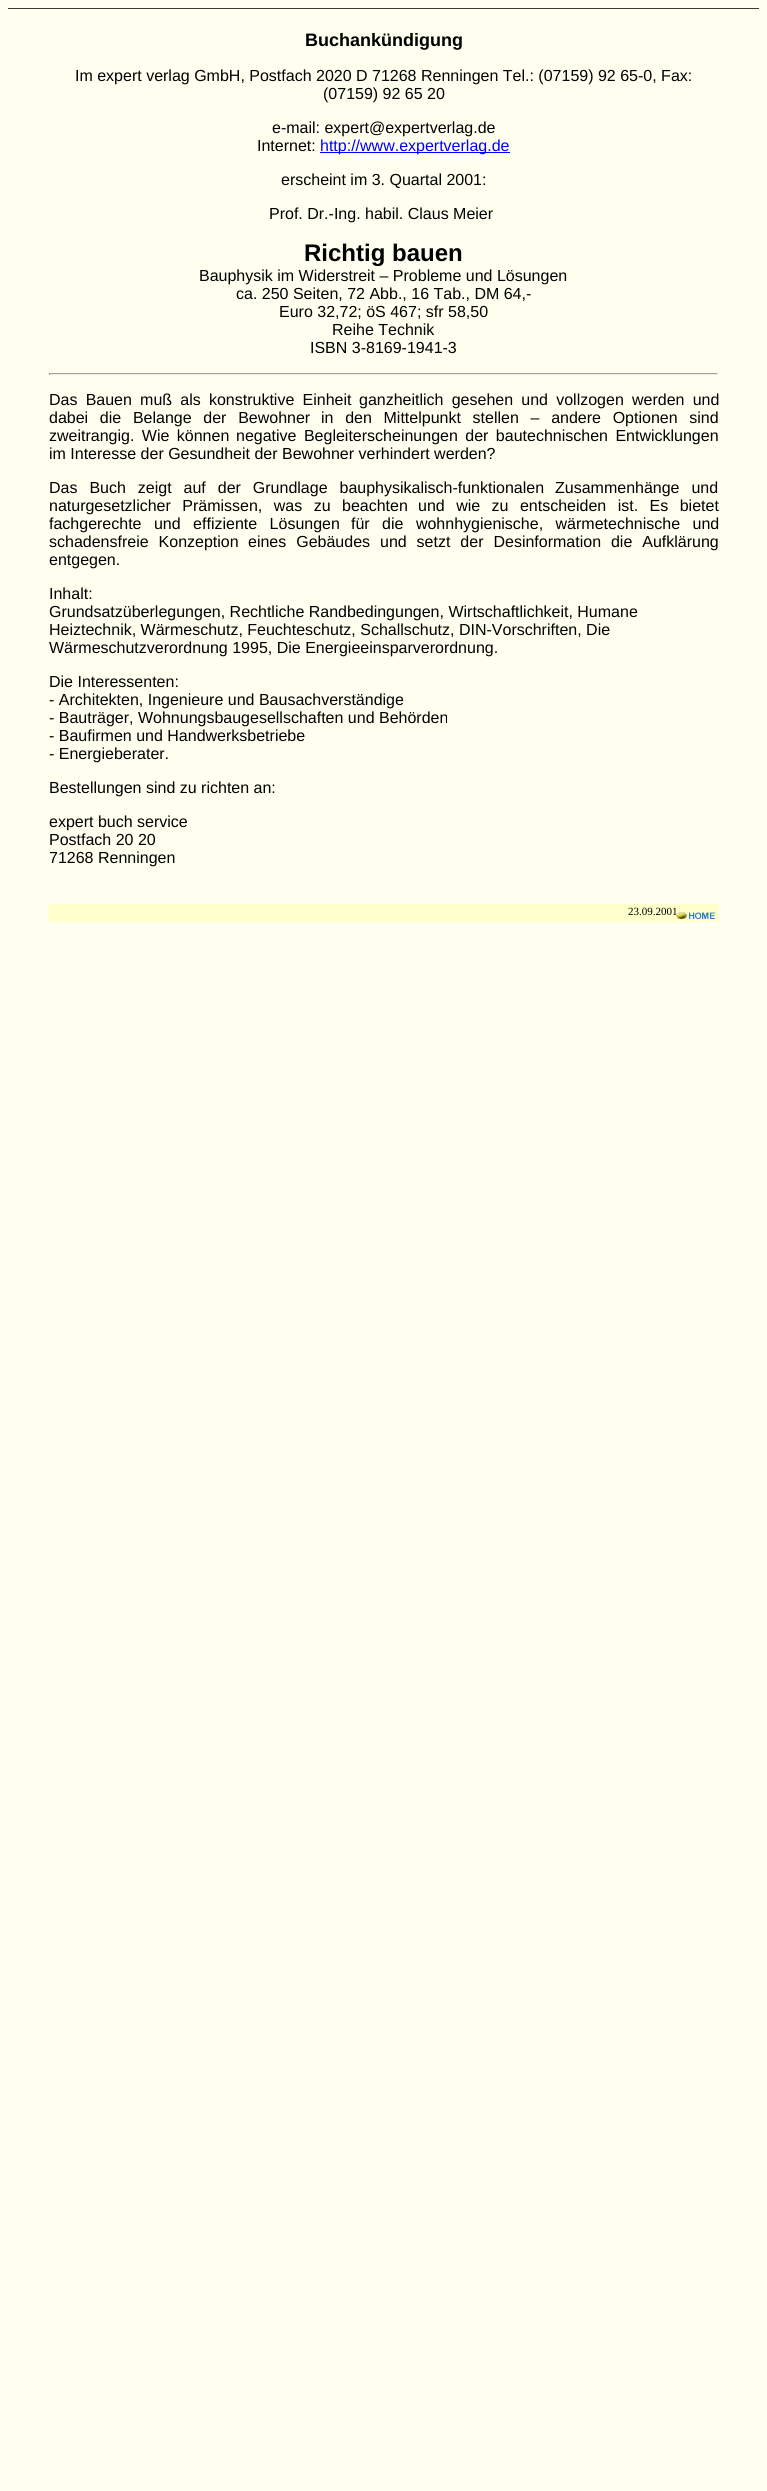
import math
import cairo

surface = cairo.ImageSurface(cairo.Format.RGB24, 767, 2491)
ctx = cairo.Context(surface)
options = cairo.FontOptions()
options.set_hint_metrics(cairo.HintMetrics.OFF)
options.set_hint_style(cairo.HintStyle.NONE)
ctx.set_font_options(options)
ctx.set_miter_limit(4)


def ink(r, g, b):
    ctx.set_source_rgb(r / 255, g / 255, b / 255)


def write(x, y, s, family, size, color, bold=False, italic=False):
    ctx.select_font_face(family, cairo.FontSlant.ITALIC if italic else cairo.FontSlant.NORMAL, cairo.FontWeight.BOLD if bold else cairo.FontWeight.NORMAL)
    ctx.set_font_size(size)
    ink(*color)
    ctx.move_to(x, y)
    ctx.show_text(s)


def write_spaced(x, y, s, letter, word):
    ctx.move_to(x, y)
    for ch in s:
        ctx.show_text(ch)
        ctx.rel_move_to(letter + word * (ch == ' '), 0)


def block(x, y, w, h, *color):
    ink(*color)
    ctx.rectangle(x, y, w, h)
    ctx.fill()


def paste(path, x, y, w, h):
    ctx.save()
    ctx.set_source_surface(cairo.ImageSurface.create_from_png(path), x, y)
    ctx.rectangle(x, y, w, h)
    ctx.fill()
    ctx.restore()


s1 = dict(family="Liberation Sans", size=18, color=(0, 0, 0), bold=True)
s2 = dict(family="Liberation Sans", size=16, color=(0, 0, 0))
s3 = dict(family="Liberation Sans", size=16, color=(0, 0, 255))
s4 = dict(family="Liberation Sans", size=24, color=(0, 0, 0), bold=True)
s5 = dict(family="Liberation Serif", size=11, color=(0, 0, 0))

ink(255, 255, 240)
ctx.paint()
block(8, 8, 751, 1, 57, 57, 57)
write(305, 46, "Buchankündigung", **s1)
write(75, 81, "Im expert verlag GmbH, Postfach 2020 D 71268 Renningen Tel.: (07159) 92 65-0, Fax:", **s2)
write(323, 99, "(07159) 92 65 20", **s2)
write(272, 133, "e-mail: expert@expertverlag.de", **s2)
write(257, 151, "Internet:", **s2)
block(320, 152, 190, 1, 0, 0, 255)
write(320, 151, "http://www.expertverlag.de", **s3)
write(281, 185, "erscheint im 3. Quartal 2001:", **s2)
write(269, 219, "Prof. Dr.-Ing. habil. Claus Meier", **s2)
write(304, 261, "Richtig bauen", **s4)
write(199, 281, "Bauphysik im Widerstreit – Probleme und Lösungen", **s2)
write(236, 299, "ca. 250 Seiten, 72 Abb., 16 Tab., DM 64,-", **s2)
write(279, 317, "Euro 32,72; öS 467; sfr 58,50", **s2)
write(332, 335, "Reihe Technik", **s2)
write(310, 353, "ISBN 3-8169-1941-3", **s2)
block(49, 373, 669, 1, 159, 159, 159)
block(717, 373, 1, 2, 238, 238, 238)
block(49, 374, 669, 1, 238, 238, 238)
block(49, 373, 1, 2, 159, 159, 159)
ink(0, 0, 0)
write_spaced(49, 405, "Das Bauen muß als konstruktive Einheit", 0, 3.75)
write_spaced(359, 405, "ganzheitlich gesehen und vollzogen werden und", 0, 3.75)
write_spaced(49, 423, "dabei die Belange der Bewohner", 0, 7.25)
write_spaced(321, 423, "in den Mittelpunkt stellen – andere Optionen sind", 0, 7.25)
write_spaced(49, 441, "zweitrangig. Wie können", 0, 3)
write_spaced(236, 441, "negative Begleiterscheinungen der bautechnischen Entwicklungen", 0, 3)
write(49, 459, "im Interesse der Gesundheit der Bewohner verhindert werden?", **s2)
write_spaced(49, 493, "Das Buch zeigt auf der Grundlage bauphysikalisch-funktionalen", 0, 7.5)
write_spaced(555, 493, "Zusammenhänge und", 0, 7.5)
write_spaced(49, 511, "naturgesetzlicher Prämissen, was zu beachten", 0, 7)
write_spaced(418, 511, "und wie zu entscheiden ist. Es bietet", 0, 7)
write_spaced(49, 529, "fachgerechte und effiziente Lösungen", 0, 8)
write_spaced(351, 529, "für die wohnhygienische, wärmetechnische und", 0, 8)
write_spaced(49, 547, "schadensfreie Konzeption", 0, 5.5)
write_spaced(248, 547, "eines Gebäudes und setzt der Desinformation die Aufklärung", 0, 5.5)
write(49, 565, "entgegen.", **s2)
write(49, 599, "Inhalt:", **s2)
write(49, 617, "Grundsatzüberlegungen, Rechtliche Randbedingungen, Wirtschaftlichkeit, Humane", **s2)
write(49, 635, "Heiztechnik, Wärmeschutz, Feuchteschutz, Schallschutz, DIN-Vorschriften, Die", **s2)
write(49, 653, "Wärmeschutzverordnung 1995, Die Energieeinsparverordnung.", **s2)
write(49, 687, "Die Interessenten:", **s2)
write(49, 705, "- Architekten, Ingenieure und Bausachverständige", **s2)
write(49, 723, "- Bauträger, Wohnungsbaugesellschaften und Behörden", **s2)
write(49, 741, "- Baufirmen und Handwerksbetriebe", **s2)
write(49, 759, "- Energieberater.", **s2)
write(49, 793, "Bestellungen sind zu richten an:", **s2)
write(49, 827, "expert buch service", **s2)
write(49, 845, "Postfach 20 20", **s2)
write(49, 863, "71268 Renningen", **s2)
block(48, 904, 671, 18, 255, 255, 204)
write(628, 915, "23.09.2001", **s5)
paste("pic1.png", 676, 912, 39, 7)
surface.write_to_png("screenshot.png")
